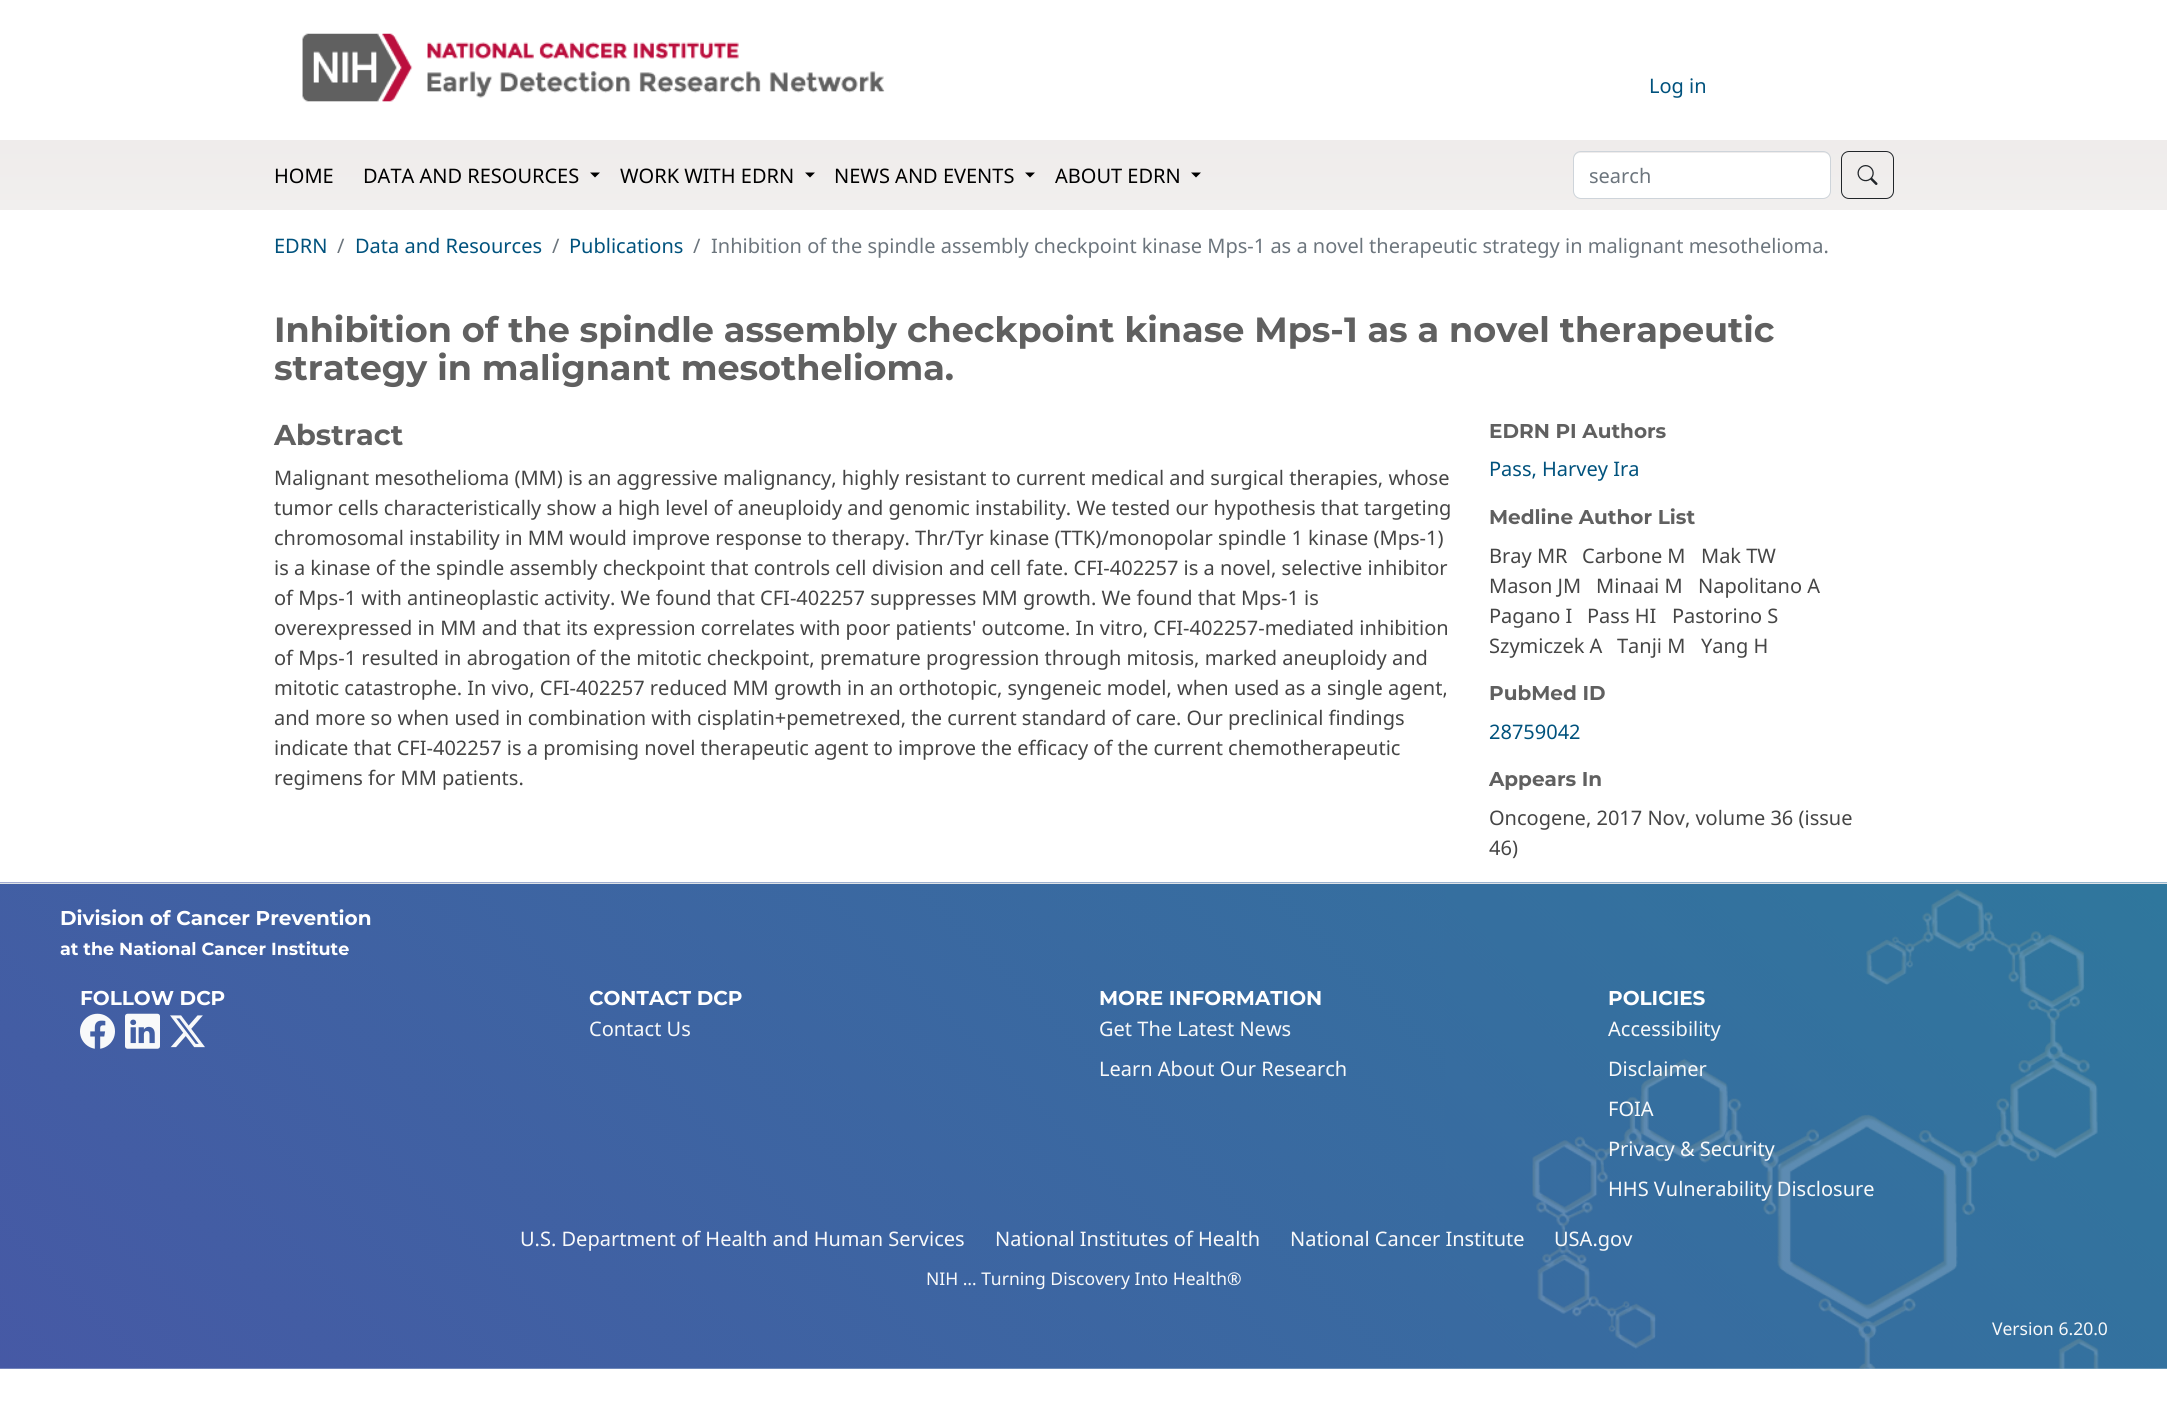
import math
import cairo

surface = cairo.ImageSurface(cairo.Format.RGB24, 2167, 1428)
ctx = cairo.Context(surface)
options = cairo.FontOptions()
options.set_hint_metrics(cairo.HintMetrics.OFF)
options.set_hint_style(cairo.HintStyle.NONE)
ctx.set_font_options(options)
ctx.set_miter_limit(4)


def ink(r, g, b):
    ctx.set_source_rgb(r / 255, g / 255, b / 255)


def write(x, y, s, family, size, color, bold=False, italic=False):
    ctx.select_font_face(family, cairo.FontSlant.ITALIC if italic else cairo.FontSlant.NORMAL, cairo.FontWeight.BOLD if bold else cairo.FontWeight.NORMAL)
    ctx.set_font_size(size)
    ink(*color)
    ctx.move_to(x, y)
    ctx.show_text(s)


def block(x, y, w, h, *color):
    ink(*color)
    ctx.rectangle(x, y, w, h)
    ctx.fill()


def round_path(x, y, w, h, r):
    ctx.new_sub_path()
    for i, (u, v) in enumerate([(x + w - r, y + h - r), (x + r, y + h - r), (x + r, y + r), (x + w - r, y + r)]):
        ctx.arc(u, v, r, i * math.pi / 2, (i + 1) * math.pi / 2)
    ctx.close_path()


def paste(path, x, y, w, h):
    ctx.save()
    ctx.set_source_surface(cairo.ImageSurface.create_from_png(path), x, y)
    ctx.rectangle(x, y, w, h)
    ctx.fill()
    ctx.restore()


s1 = dict(family="Noto Sans", size=20, color=(0, 82, 125))
s2 = dict(family="Noto Sans", size=20, color=(0, 0, 0))
s3 = dict(family="Noto Sans", size=20, color=(108, 117, 125))
s4 = dict(family="Montserrat Thin", size=35, color=(96, 96, 96))
s5 = dict(family="Montserrat Thin", size=28.75, color=(96, 96, 96))
s6 = dict(family="Noto Sans", size=20, color=(69, 69, 69))
s7 = dict(family="Montserrat Thin", size=20, color=(96, 96, 96))
s8 = dict(family="Montserrat Thin", size=20, color=(255, 255, 255))
s9 = dict(family="Montserrat Thin", size=17.5, color=(255, 255, 255))
s10 = dict(family="Noto Sans", size=20, color=(248, 249, 250))
s11 = dict(family="Noto Sans", size=17.5, color=(248, 249, 250))

ink(255, 255, 255)
ctx.paint()
paste("pic1.png", 302, 33, 583, 69)
write(1649, 93, "Log in", **s1)
gradient = cairo.LinearGradient(1084, 140, 1084, 210)
gradient.add_color_stop_rgba(0, 0.937, 0.925, 0.922, 1)
gradient.add_color_stop_rgba(1, 0.945, 0.937, 0.933, 1)
ctx.set_source(gradient)
ctx.rectangle(0, 140, 2167, 70)
ctx.fill()
write(274, 183, "HOME", **s2)
write(363, 183, "DATA AND RESOURCES", **s2)
ctx.new_path()
ctx.move_to(590, 172.5)
ctx.line_to(600, 172.5)
ctx.line_to(595, 177.5)
ctx.close_path()
ctx.fill()
write(620, 183, "WORK WITH EDRN", **s2)
ctx.new_path()
ctx.move_to(805, 172.5)
ctx.line_to(815, 172.5)
ctx.line_to(810, 177.5)
ctx.close_path()
ctx.fill()
write(834, 183, "NEWS AND EVENTS", **s2)
ctx.new_path()
ctx.move_to(1025, 172.5)
ctx.line_to(1035, 172.5)
ctx.line_to(1030, 177.5)
ctx.close_path()
ctx.fill()
write(1055, 183, "ABOUT EDRN", **s2)
ctx.new_path()
ctx.move_to(1191, 172.5)
ctx.line_to(1201, 172.5)
ctx.line_to(1196, 177.5)
ctx.close_path()
ctx.fill()
ink(255, 255, 255)
round_path(1574, 153, 256, 45, 6)
ctx.fill()
round_path(1573.5, 151.5, 257, 47, 7.5)
ink(206, 212, 218)
ctx.set_line_width(1)
ctx.stroke()
write(1589, 183, "search", **s3)
round_path(1841.5, 151.5, 52, 47, 7.5)
ink(33, 37, 41)
ctx.stroke()
paste("pic2.png", 1857, 165, 21, 20)
write(274, 253, "EDRN", **s1)
write(337, 253, "/", **s3)
write(355, 253, "Data and Resources", **s1)
write(552, 253, "/", **s3)
write(569, 253, "Publications", **s1)
write(693, 253, "/", **s3)
write(711, 253, "Inhibition of the spindle assembly checkpoint kinase Mps-1 as a novel therapeutic strategy in malignant mesothelioma.", **s3)
write(274, 342, "Inhibition of the spindle assembly checkpoint kinase Mps-1 as a novel therapeutic", **s4)
write(274, 380, "strategy in malignant mesothelioma.", **s4)
write(274, 445, "Abstract", **s5)
write(274, 485, "Malignant mesothelioma (MM) is an aggressive malignancy, highly resistant to current medical and surgical therapies, whose", **s6)
write(274, 515, "tumor cells characteristically show a high level of aneuploidy and genomic instability. We tested our hypothesis that targeting", **s6)
write(274, 545, "chromosomal instability in MM would improve response to therapy. Thr/Tyr kinase (TTK)/monopolar spindle 1 kinase (Mps-1)", **s6)
write(274, 575, "is a kinase of the spindle assembly checkpoint that controls cell division and cell fate. CFI-402257 is a novel, selective inhibitor", **s6)
write(274, 605, "of Mps-1 with antineoplastic activity. We found that CFI-402257 suppresses MM growth. We found that Mps-1 is", **s6)
write(274, 635, "overexpressed in MM and that its expression correlates with poor patients' outcome. In vitro, CFI-402257-mediated inhibition", **s6)
write(274, 665, "of Mps-1 resulted in abrogation of the mitotic checkpoint, premature progression through mitosis, marked aneuploidy and", **s6)
write(274, 695, "mitotic catastrophe. In vivo, CFI-402257 reduced MM growth in an orthotopic, syngeneic model, when used as a single agent,", **s6)
write(274, 725, "and more so when used in combination with cisplatin+pemetrexed, the current standard of care. Our preclinical findings", **s6)
write(274, 755, "indicate that CFI-402257 is a promising novel therapeutic agent to improve the efficacy of the current chemotherapeutic", **s6)
write(274, 785, "regimens for MM patients.", **s6)
write(1489, 438, "EDRN PI Authors", **s7)
write(1489, 476, "Pass, Harvey Ira", **s1)
write(1489, 524, "Medline Author List", **s7)
write(1489, 563, "Bray MR", **s6)
write(1582, 563, "Carbone M", **s6)
write(1701, 563, "Mak TW", **s6)
write(1489, 593, "Mason JM", **s6)
write(1596, 593, "Minaai M", **s6)
write(1698, 593, "Napolitano A", **s6)
write(1489, 623, "Pagano I", **s6)
write(1587, 623, "Pass HI", **s6)
write(1672, 623, "Pastorino S", **s6)
write(1489, 653, "Szymiczek A", **s6)
write(1617, 653, "Tanji M", **s6)
write(1701, 653, "Yang H", **s6)
write(1489, 700, "PubMed ID", **s7)
write(1489, 739, "28759042", **s1)
write(1489, 786, "Appears In", **s7)
write(1489, 825, "Oncogene, 2017 Nov, volume 36 (issue", **s6)
write(1489, 855, "46)", **s6)
paste("pic3.png", 0, 882, 2167, 487)
block(0, 883, 2167, 1, 222, 226, 230)
write(60, 925, "Division of Cancer Prevention", **s8)
write(60, 955, "at the National Cancer Institute", **s9)
write(80, 1005, "FOLLOW DCP", **s8)
paste("pic4.png", 80, 1013, 35, 36)
paste("pic5.png", 125, 1013, 35, 36)
paste("pic6.png", 170, 1015, 35, 33)
write(589, 1005, "CONTACT DCP", **s8)
write(589, 1036, "Contact Us", **s10)
write(1099, 1005, "MORE INFORMATION", **s8)
write(1099, 1036, "Get The Latest News", **s10)
write(1099, 1076, "Learn About Our Research", **s10)
write(1608, 1005, "POLICIES", **s8)
write(1608, 1036, "Accessibility", **s10)
write(1608, 1076, "Disclaimer", **s10)
write(1608, 1116, "FOIA", **s10)
write(1608, 1156, "Privacy & Security", **s10)
write(1608, 1196, "HHS Vulnerability Disclosure", **s10)
write(520, 1246, "U.S. Department of Health and Human Services", **s10)
write(995, 1246, "National Institutes of Health", **s10)
write(1290, 1246, "National Cancer Institute", **s10)
write(1554, 1246, "USA.gov", **s10)
write(926, 1285, "NIH … Turning Discovery Into Health®", **s11)
write(1992, 1335, "Version 6.20.0", **s11)
surface.write_to_png("screenshot.png")
